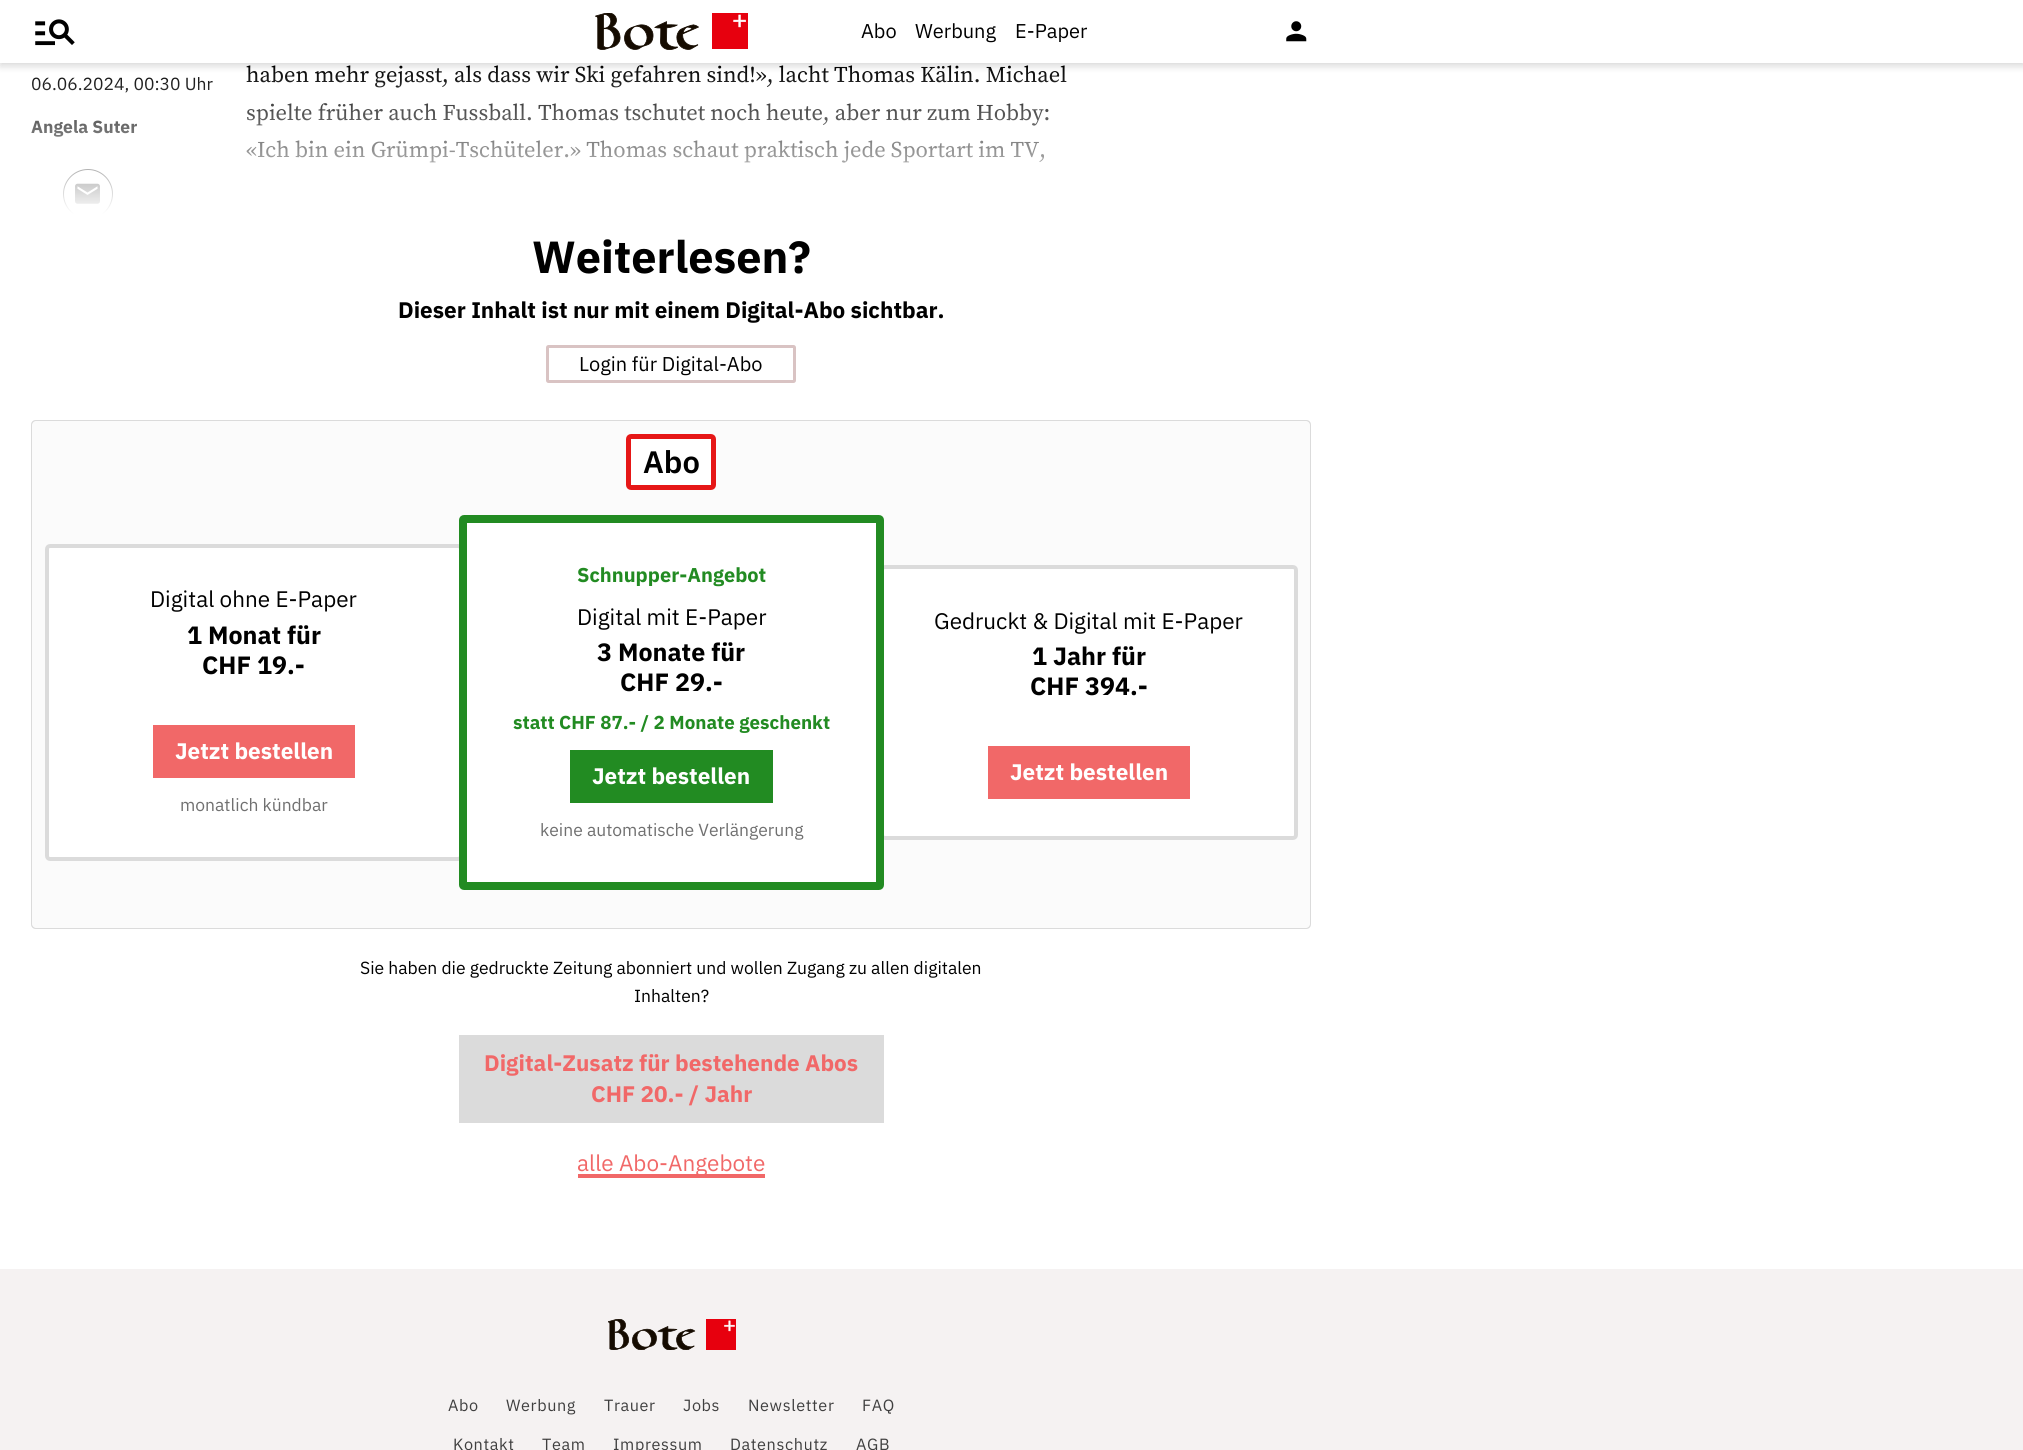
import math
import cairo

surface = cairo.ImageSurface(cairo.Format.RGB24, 2023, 1450)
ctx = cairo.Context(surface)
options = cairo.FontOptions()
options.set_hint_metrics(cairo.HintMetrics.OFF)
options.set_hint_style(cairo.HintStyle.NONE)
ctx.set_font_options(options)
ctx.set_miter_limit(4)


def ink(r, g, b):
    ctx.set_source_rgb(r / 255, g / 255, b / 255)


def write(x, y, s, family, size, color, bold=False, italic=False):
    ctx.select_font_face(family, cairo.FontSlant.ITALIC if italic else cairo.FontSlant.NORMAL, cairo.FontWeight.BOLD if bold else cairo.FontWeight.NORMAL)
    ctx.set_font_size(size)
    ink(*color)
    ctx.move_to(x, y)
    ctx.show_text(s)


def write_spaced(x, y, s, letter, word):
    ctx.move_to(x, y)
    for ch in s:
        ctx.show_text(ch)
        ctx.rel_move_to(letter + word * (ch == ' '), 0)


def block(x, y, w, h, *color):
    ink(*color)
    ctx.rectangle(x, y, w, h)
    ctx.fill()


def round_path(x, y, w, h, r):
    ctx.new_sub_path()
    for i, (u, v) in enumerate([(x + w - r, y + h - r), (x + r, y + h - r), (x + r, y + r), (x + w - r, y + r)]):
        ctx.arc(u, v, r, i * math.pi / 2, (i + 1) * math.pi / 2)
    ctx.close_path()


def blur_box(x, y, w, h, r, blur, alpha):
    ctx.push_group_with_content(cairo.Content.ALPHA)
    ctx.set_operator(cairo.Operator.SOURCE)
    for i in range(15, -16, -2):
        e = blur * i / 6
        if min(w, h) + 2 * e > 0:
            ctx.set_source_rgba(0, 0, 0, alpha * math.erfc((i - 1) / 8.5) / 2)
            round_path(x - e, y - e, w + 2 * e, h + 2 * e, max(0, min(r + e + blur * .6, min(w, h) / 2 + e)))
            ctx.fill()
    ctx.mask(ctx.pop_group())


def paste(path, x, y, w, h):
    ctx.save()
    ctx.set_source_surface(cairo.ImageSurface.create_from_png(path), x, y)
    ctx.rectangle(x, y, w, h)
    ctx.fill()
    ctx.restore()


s1 = dict(family="Source Serif Pro", size=22.5, color=(0, 0, 0))
s2 = dict(family="IBM Plex Sans", size=17.5, color=(0, 0, 0))
s3 = dict(family="IBM Plex Sans", size=17.5, color=(0, 0, 0), bold=True)
s4 = dict(family="IBM Plex Sans", size=20, color=(0, 0, 0))
s5 = dict(family="IBM Plex Sans", size=45, color=(0, 0, 0), bold=True)
s6 = dict(family="IBM Plex Sans", size=22.5, color=(0, 0, 0), bold=True)
s7 = dict(family="IBM Plex Sans SemiBold", size=31, color=(0, 0, 0))
s8 = dict(family="IBM Plex Sans", size=22.5, color=(0, 0, 0))
s9 = dict(family="IBM Plex Sans", size=25, color=(0, 0, 0), bold=True)
s10 = dict(family="IBM Plex Sans", size=22.5, color=(255, 255, 255), bold=True)
s11 = dict(family="IBM Plex Sans", size=17.5, color=(112, 112, 112))
s12 = dict(family="IBM Plex Sans", size=20, color=(34, 139, 34), bold=True)
s13 = dict(family="IBM Plex Sans", size=18.75, color=(34, 139, 34), bold=True)
s14 = dict(family="IBM Plex Sans", size=22.5, color=(241, 104, 104), bold=True)
s15 = dict(family="IBM Plex Sans", size=22.5, color=(241, 104, 104))

ink(255, 255, 255)
ctx.paint()
write(246, 82, "haben mehr gejasst, als dass wir Ski gefahren sind!», lacht Thomas Kälin. Michael", **s1)
write(246, 120, "spielte früher auch Fussball. Thomas tschutet noch heute, aber nur zum Hobby:", **s1)
write(246, 157, "«Ich bin ein Grümpi-Tschüteler.» Thomas schaut praktisch jede Sportart im TV,", **s1)
write(31, 90, "06.06.2024, 00:30 Uhr", **s2)
write(31, 133, "Angela Suter", **s3)
ctx.save()
ctx.rectangle(31, 0, 1280, 214)
ctx.clip()
ctx.arc(88, 194, 24.5, 0, 2 * math.pi)
ctx.set_line_width(1)
ctx.stroke()
ctx.restore()
paste("pic4.png", 75, 183, 25, 21)
gradient = cairo.LinearGradient(671, -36, 671, 214)
gradient.add_color_stop_rgba(0.4, 1, 1, 1, 0)
gradient.add_color_stop_rgba(1, 1, 1, 1, 1)
ctx.set_source(gradient)
ctx.rectangle(31, 67, 1036, 147)
ctx.fill()
ink(0, 0, 0)
blur_box(0, 4, 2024, 62, 0, 4, 0.16)
block(0, 0, 2023, 63, 255, 255, 255)
paste("pic1.png", 35, 19, 40, 27)
paste("pic2.png", 595, 13, 153, 37)
write(861, 38, "Abo", **s4)
write(915, 38, "Werbung", **s4)
write(1015, 38, "E-Paper", **s4)
paste("pic3.png", 1286, 21, 21, 21)
write(532, 273, "Weiterlesen?", **s5)
write(398, 318, "Dieser Inhalt ist nur mit einem Digital-Abo sichtbar.", **s6)
round_path(547.5, 346.5, 247, 35, 1)
ink(217, 195, 195)
ctx.set_line_width(3)
ctx.stroke()
write(579, 371, "Login für Digital-Abo", **s4)
ink(251, 251, 251)
ctx.new_path()
ctx.move_to(36, 420)
ctx.line_to(1306, 420)
ctx.curve_to(1309, 420, 1311, 422, 1311, 425)
ctx.line_to(1311, 503)
ctx.line_to(31, 503)
ctx.line_to(31, 425)
ctx.curve_to(31, 422, 33, 420, 36, 420)
ctx.close_path()
ctx.fill()
ink(219, 219, 219)
ctx.set_fill_rule(cairo.FillRule.EVEN_ODD)
ctx.new_path()
ctx.move_to(36, 420)
ctx.line_to(1306, 420)
ctx.curve_to(1309, 420, 1311, 422, 1311, 425)
ctx.line_to(1311, 502)
ctx.line_to(31, 502)
ctx.line_to(31, 425)
ctx.curve_to(31, 422, 33, 420, 36, 420)
ctx.close_path()
ctx.move_to(36, 421)
ctx.line_to(1306, 421)
ctx.curve_to(1308, 421, 1310, 423, 1310, 425)
ctx.line_to(1310, 502)
ctx.line_to(32, 502)
ctx.line_to(32, 425)
ctx.curve_to(32, 423, 34, 421, 36, 421)
ctx.close_path()
ctx.fill()
ink(255, 255, 255)
round_path(628.5, 436.5, 85, 51, 2.5)
ctx.fill_preserve()
ink(230, 23, 23)
ctx.set_line_width(5)
ctx.stroke()
write(643, 473, "Abo", **s7)
ink(251, 251, 251)
ctx.new_path()
ctx.move_to(31, 503)
ctx.line_to(1311, 503)
ctx.line_to(1311, 924)
ctx.curve_to(1311, 927, 1309, 929, 1306, 929)
ctx.line_to(36, 929)
ctx.curve_to(33, 929, 31, 927, 31, 924)
ctx.close_path()
ctx.fill()
ink(219, 219, 219)
ctx.new_path()
ctx.move_to(31, 502)
ctx.line_to(1311, 502)
ctx.line_to(1311, 924)
ctx.curve_to(1311, 927, 1309, 929, 1306, 929)
ctx.line_to(36, 929)
ctx.curve_to(33, 929, 31, 927, 31, 924)
ctx.close_path()
ctx.move_to(32, 502)
ctx.line_to(1310, 502)
ctx.line_to(1310, 924)
ctx.curve_to(1310, 926, 1308, 928, 1306, 928)
ctx.line_to(36, 928)
ctx.curve_to(34, 928, 32, 926, 32, 924)
ctx.close_path()
ctx.fill()
ink(255, 255, 255)
round_path(47, 546, 414, 313, 3)
ctx.fill_preserve()
ink(219, 219, 219)
ctx.set_line_width(4)
ctx.stroke()
write(150, 607, "Digital ohne E-Paper", **s8)
write(187, 644, "1 Monat für", **s9)
write(202, 674, "CHF 19.-", **s9)
block(153, 725, 202, 53, 241, 104, 104)
write(175, 759, "Jetzt bestellen", **s10)
write(180, 811, "monatlich kündbar", **s11)
ink(255, 255, 255)
round_path(882, 567, 414, 271, 3)
ctx.fill_preserve()
ink(219, 219, 219)
ctx.stroke()
ink(255, 255, 255)
round_path(463, 519, 417, 367, 1)
ctx.fill_preserve()
ink(34, 139, 34)
ctx.set_line_width(8)
ctx.stroke()
write(577, 582, "Schnupper-Angebot", **s12)
write(577, 625, "Digital mit E-Paper", **s8)
write(597, 661, "3 Monate für", **s9)
write(620, 691, "CHF 29.-", **s9)
write(513, 729, "statt CHF 87.- / 2 Monate geschenkt", **s13)
block(570, 750, 203, 53, 34, 139, 34)
write(592, 784, "Jetzt bestellen", **s10)
write(540, 836, "keine automatische Verlängerung", **s11)
write(934, 629, "Gedruckt & Digital mit E-Paper", **s8)
write(1032, 665, "1 Jahr für", **s9)
write(1030, 695, "CHF 394.-", **s9)
block(988, 746, 202, 53, 241, 104, 104)
write(1010, 780, "Jetzt bestellen", **s10)
write(360, 974, "Sie haben die gedruckte Zeitung abonniert und wollen Zugang zu allen digitalen", **s2)
write(634, 1002, "Inhalten?", **s2)
block(459, 1035, 425, 88, 219, 219, 219)
write(484, 1071, "Digital-Zusatz für bestehende Abos", **s14)
write(591, 1102, "CHF 20.- / Jahr", **s14)
block(578, 1174, 187, 4, 241, 104, 104)
write(577, 1171, "alle Abo-Angebote", **s15)
block(0, 1269, 2023, 181, 245, 242, 242)
paste("pic5.png", 608, 1319, 128, 31)
ctx.set_font_size(16.25)
ink(63, 63, 63)
write_spaced(448, 1411, "Abo", 0.6, 0)
write_spaced(506, 1411, "Werbung", 0.6, 0)
write_spaced(604, 1411, "Trauer", 0.6, 0)
write_spaced(683, 1411, "Jobs", 0.6, 0)
write_spaced(748, 1411, "Newsletter", 0.6, 0)
write_spaced(862, 1411, "FAQ", 0.6, 0)
write_spaced(453, 1450, "Kontakt", 0.6, 0)
write_spaced(542, 1450, "Team", 0.6, 0)
write_spaced(613, 1450, "Impressum", 0.6, 0)
write_spaced(730, 1450, "Datenschutz", 0.6, 0)
write_spaced(856, 1450, "AGB", 0.6, 0)
surface.write_to_png("screenshot.png")
